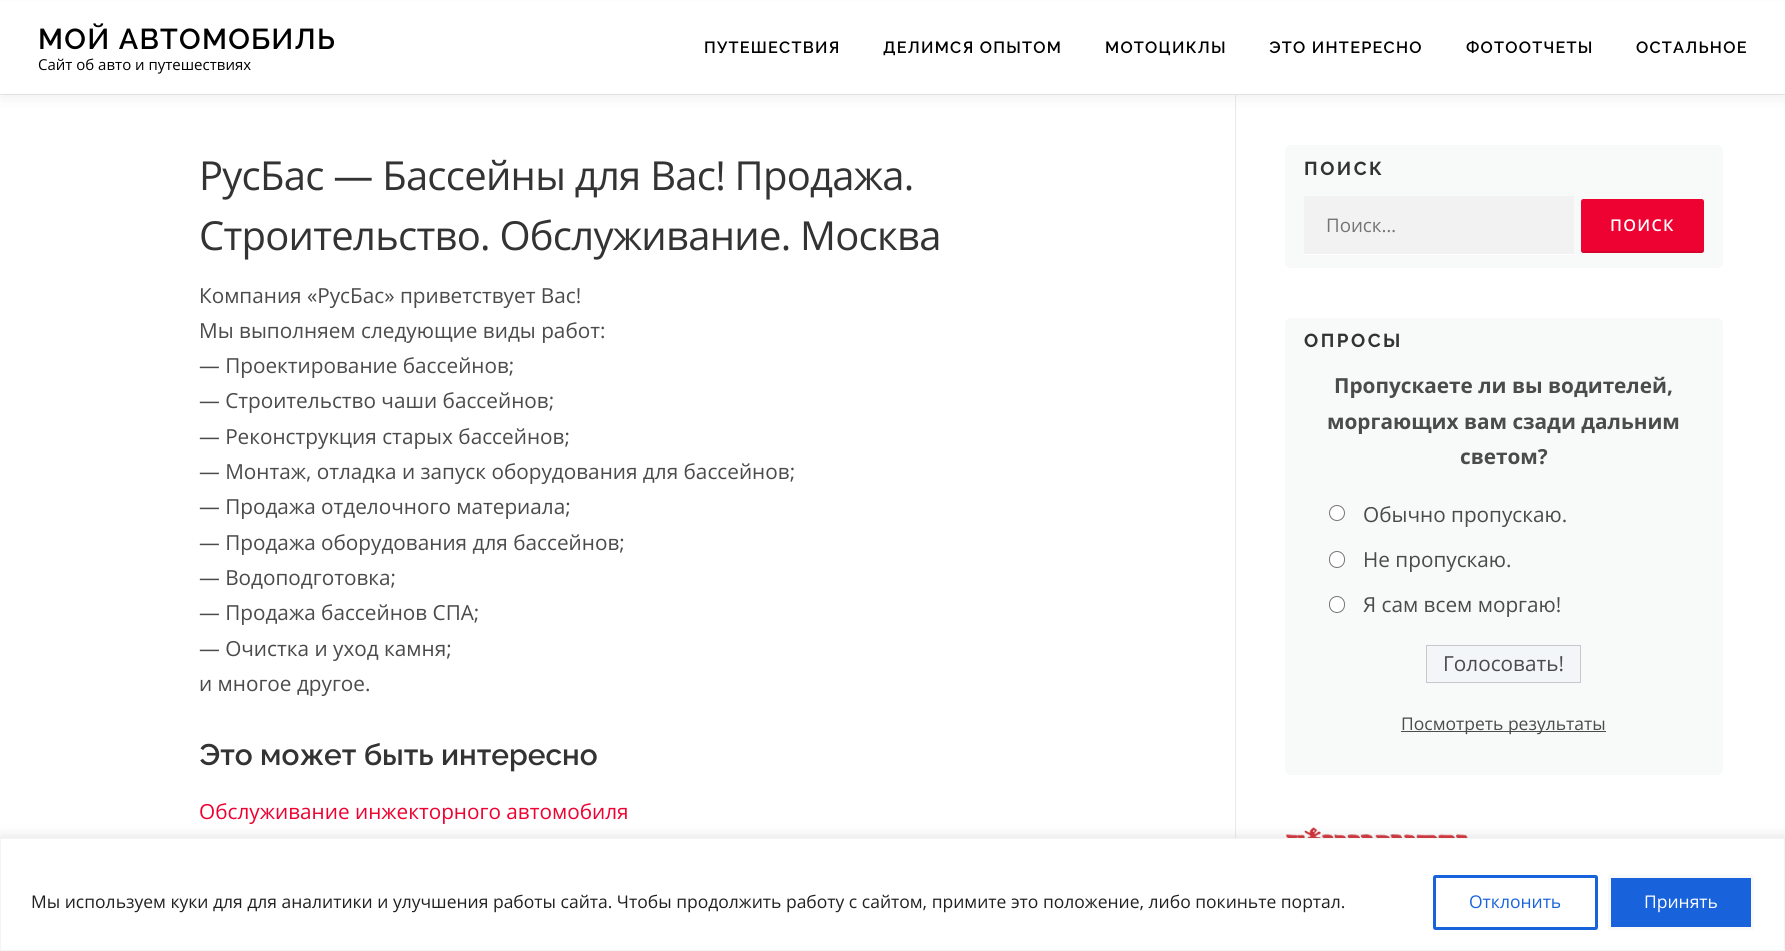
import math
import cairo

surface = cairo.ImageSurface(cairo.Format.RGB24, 1785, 951)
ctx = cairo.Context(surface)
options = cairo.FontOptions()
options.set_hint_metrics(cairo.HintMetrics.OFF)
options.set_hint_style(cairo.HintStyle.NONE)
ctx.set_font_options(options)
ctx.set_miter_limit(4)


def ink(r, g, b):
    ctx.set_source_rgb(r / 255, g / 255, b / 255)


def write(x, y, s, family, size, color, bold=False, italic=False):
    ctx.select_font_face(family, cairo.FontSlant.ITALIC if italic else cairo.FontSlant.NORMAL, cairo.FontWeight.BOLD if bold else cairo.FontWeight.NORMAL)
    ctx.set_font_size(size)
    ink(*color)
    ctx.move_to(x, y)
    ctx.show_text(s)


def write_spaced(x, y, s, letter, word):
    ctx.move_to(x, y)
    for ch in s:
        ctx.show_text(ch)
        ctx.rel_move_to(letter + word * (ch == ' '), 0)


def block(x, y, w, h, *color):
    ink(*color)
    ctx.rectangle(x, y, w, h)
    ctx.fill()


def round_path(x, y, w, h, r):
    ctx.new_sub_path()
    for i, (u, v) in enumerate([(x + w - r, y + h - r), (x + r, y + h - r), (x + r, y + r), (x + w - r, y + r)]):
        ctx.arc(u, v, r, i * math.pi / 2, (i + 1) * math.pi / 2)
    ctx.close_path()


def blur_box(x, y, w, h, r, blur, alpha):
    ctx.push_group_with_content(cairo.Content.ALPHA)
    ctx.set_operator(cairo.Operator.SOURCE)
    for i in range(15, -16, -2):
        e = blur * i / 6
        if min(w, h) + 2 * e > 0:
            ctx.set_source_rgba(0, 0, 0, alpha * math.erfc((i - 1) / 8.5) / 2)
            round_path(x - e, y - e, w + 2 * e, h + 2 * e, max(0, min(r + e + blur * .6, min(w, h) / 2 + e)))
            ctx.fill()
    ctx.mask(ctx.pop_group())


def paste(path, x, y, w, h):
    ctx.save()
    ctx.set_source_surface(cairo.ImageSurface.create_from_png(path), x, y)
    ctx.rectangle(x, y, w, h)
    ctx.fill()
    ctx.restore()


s1 = dict(family="Open Sans", size=15, color=(0, 0, 0))
s2 = dict(family="Open Sans", size=20.75, color=(75, 75, 75))
s3 = dict(family="Raleway SemiBold", size=29.75, color=(51, 51, 51))
s4 = dict(family="Open Sans", size=20.75, color=(237, 2, 49))
s5 = dict(family="Open Sans", size=18.75, color=(117, 117, 117))
s6 = dict(family="Open Sans", size=20.75, color=(75, 75, 75), bold=True)
s7 = dict(family="Open Sans", size=17.5, color=(75, 75, 75))
s8 = dict(family="Open Sans", size=17.5, color=(33, 33, 33))
s9 = dict(family="Open Sans", size=17.5, color=(24, 99, 220))
s10 = dict(family="Open Sans", size=17.5, color=(255, 255, 255))

ink(255, 255, 255)
ctx.paint()
block(0, 94, 1785, 1, 233, 233, 233)
block(1235, 95, 1, 743, 233, 233, 233)
ink(50, 50, 50)
blur_box(0, 6, 1785, 94, 0, 6, 0.06)
block(0, 1, 1785, 93, 255, 255, 255)
ctx.select_font_face("Raleway SemiBold")
ctx.set_font_size(28.75)
ink(0, 0, 0)
write_spaced(38, 49, "МОЙ АВТОМОБИЛЬ", 1.25, 0)
write(38, 70, "Сайт об авто и путешествиях", **s1)
ctx.select_font_face("Raleway SemiBold")
ctx.set_font_size(16.25)
write_spaced(704, 53, "ПУТЕШЕСТВИЯ", 1.25, 0)
write_spaced(883, 53, "ДЕЛИМСЯ ОПЫТОМ", 1.25, 0)
write_spaced(1105, 53, "МОТОЦИКЛЫ", 1.25, 0)
write_spaced(1269, 53, "ЭТО ИНТЕРЕСНО", 1.25, 0)
write_spaced(1466, 53, "ФОТООТЧЕТЫ", 1.25, 0)
write_spaced(1636, 53, "ОСТАЛЬНОЕ", 1.25, 0)
ctx.select_font_face("Open Sans")
ctx.set_font_size(40)
ink(51, 51, 51)
write_spaced(199, 190, "РусБас — Бассейны для Вас! Продажа.", -0.75, 0)
write_spaced(199, 250, "Строительство. Обслуживание. Москва", -0.75, 0)
write(199, 303, "Компания «РусБас» приветствует Вас!", **s2)
write(199, 338, "Мы выполняем следующие виды работ:", **s2)
write(199, 373, "— Проектирование бассейнов;", **s2)
write(199, 408, "— Строительство чаши бассейнов;", **s2)
write(199, 444, "— Реконструкция старых бассейнов;", **s2)
write(199, 479, "— Монтаж, отладка и запуск оборудования для бассейнов;", **s2)
write(199, 514, "— Продажа отделочного материала;", **s2)
write(199, 550, "— Продажа оборудования для бассейнов;", **s2)
write(199, 585, "— Водоподготовка;", **s2)
write(199, 620, "— Продажа бассейнов СПА;", **s2)
write(199, 656, "— Очистка и уход камня;", **s2)
write(199, 691, "и многое другое.", **s2)
write(199, 765, "Это может быть интересно", **s3)
write(199, 819, "Обслуживание инжекторного автомобиля", **s4)
ink(248, 249, 249)
round_path(1285, 145, 438, 123, 6)
ctx.fill()
ctx.select_font_face("Raleway", cairo.FontSlant.NORMAL, cairo.FontWeight.BOLD)
ctx.set_font_size(18.75)
ink(51, 51, 51)
write_spaced(1304, 175, "ПОИСК", 2.5, 0)
block(1304, 196, 270, 58, 242, 242, 242)
block(1304, 254, 270, 1, 255, 255, 255)
write(1326, 232, "Поиск…", **s5)
ink(237, 2, 49)
round_path(1581, 199, 123, 54, 2.5)
ctx.fill()
ctx.set_source_rgba(0, 0, 0, 0.1)
ctx.new_path()
ctx.move_to(1581, 249)
ctx.line_to(1581, 250)
ctx.curve_to(1581, 252, 1582, 253, 1584, 253)
ctx.line_to(1702, 253)
ctx.curve_to(1703, 253, 1704, 252, 1704, 250)
ctx.line_to(1704, 249)
ctx.curve_to(1704, 250, 1703, 251, 1701, 251)
ctx.line_to(1584, 251)
ctx.curve_to(1582, 251, 1581, 250, 1581, 249)
ctx.close_path()
ctx.fill()
ctx.select_font_face("Open Sans SemiBold")
ctx.set_font_size(16.25)
ink(255, 255, 255)
write_spaced(1610, 231, "ПОИСК", 1.25, 0)
ink(248, 249, 249)
round_path(1285, 318, 438, 457, 6)
ctx.fill()
ctx.select_font_face("Raleway", cairo.FontSlant.NORMAL, cairo.FontWeight.BOLD)
ctx.set_font_size(18.75)
ink(51, 51, 51)
write_spaced(1304, 347, "ОПРОСЫ", 2.5, 0)
write(1334, 393, "Пропускаете ли вы водителей,", **s6)
write(1327, 429, "моргающих вам сзади дальним", **s6)
write(1460, 464, "светом?", **s6)
ink(255, 255, 255)
ctx.new_path()
ctx.arc(1337, 513, 7.5, 0, 2 * math.pi)
ctx.fill_preserve()
ink(118, 118, 118)
ctx.set_line_width(1)
ctx.stroke()
write(1363, 522, "Обычно пропускаю.", **s2)
ink(255, 255, 255)
round_path(1329.5, 551.5, 15, 16, 7.5)
ctx.fill_preserve()
ink(118, 118, 118)
ctx.stroke()
write(1363, 567, "Не пропускаю.", **s2)
ink(255, 255, 255)
round_path(1329.5, 596.5, 15, 16, 7.5)
ctx.fill_preserve()
ink(118, 118, 118)
ctx.stroke()
write(1363, 612, "Я сам всем моргаю!", **s2)
ink(243, 246, 248)
ctx.rectangle(1426.5, 645.5, 154, 37)
ctx.fill_preserve()
ink(200, 200, 200)
ctx.stroke()
write(1443, 671, "Голосовать!", **s2)
block(1401, 731, 205, 1, 75, 75, 75)
write(1401, 730, "Посмотреть результаты", **s7)
paste("pic1.png", 1285, 827, 183, 11)
ink(172, 171, 171)
blur_box(0, 836, 1785, 114, 0, 6, 0.3)
ink(255, 255, 255)
ctx.rectangle(0.5, 838.5, 1784, 112)
ctx.fill_preserve()
ink(244, 244, 244)
ctx.stroke()
write(31, 908, "Мы используем куки для для аналитики и улучшения работы сайта. Чтобы продолжить работу с сайтом, примите это положение, либо покиньте портал.", **s8)
round_path(1434.5, 876.5, 162, 52, 1)
ink(24, 99, 220)
ctx.set_line_width(3)
ctx.stroke()
write(1469, 908, "Отклонить", **s9)
round_path(1609.5, 876.5, 143, 52, 1)
ctx.fill_preserve()
ink(248, 249, 249)
ctx.stroke()
write(1644, 908, "Принять", **s10)
surface.write_to_png("screenshot.png")
